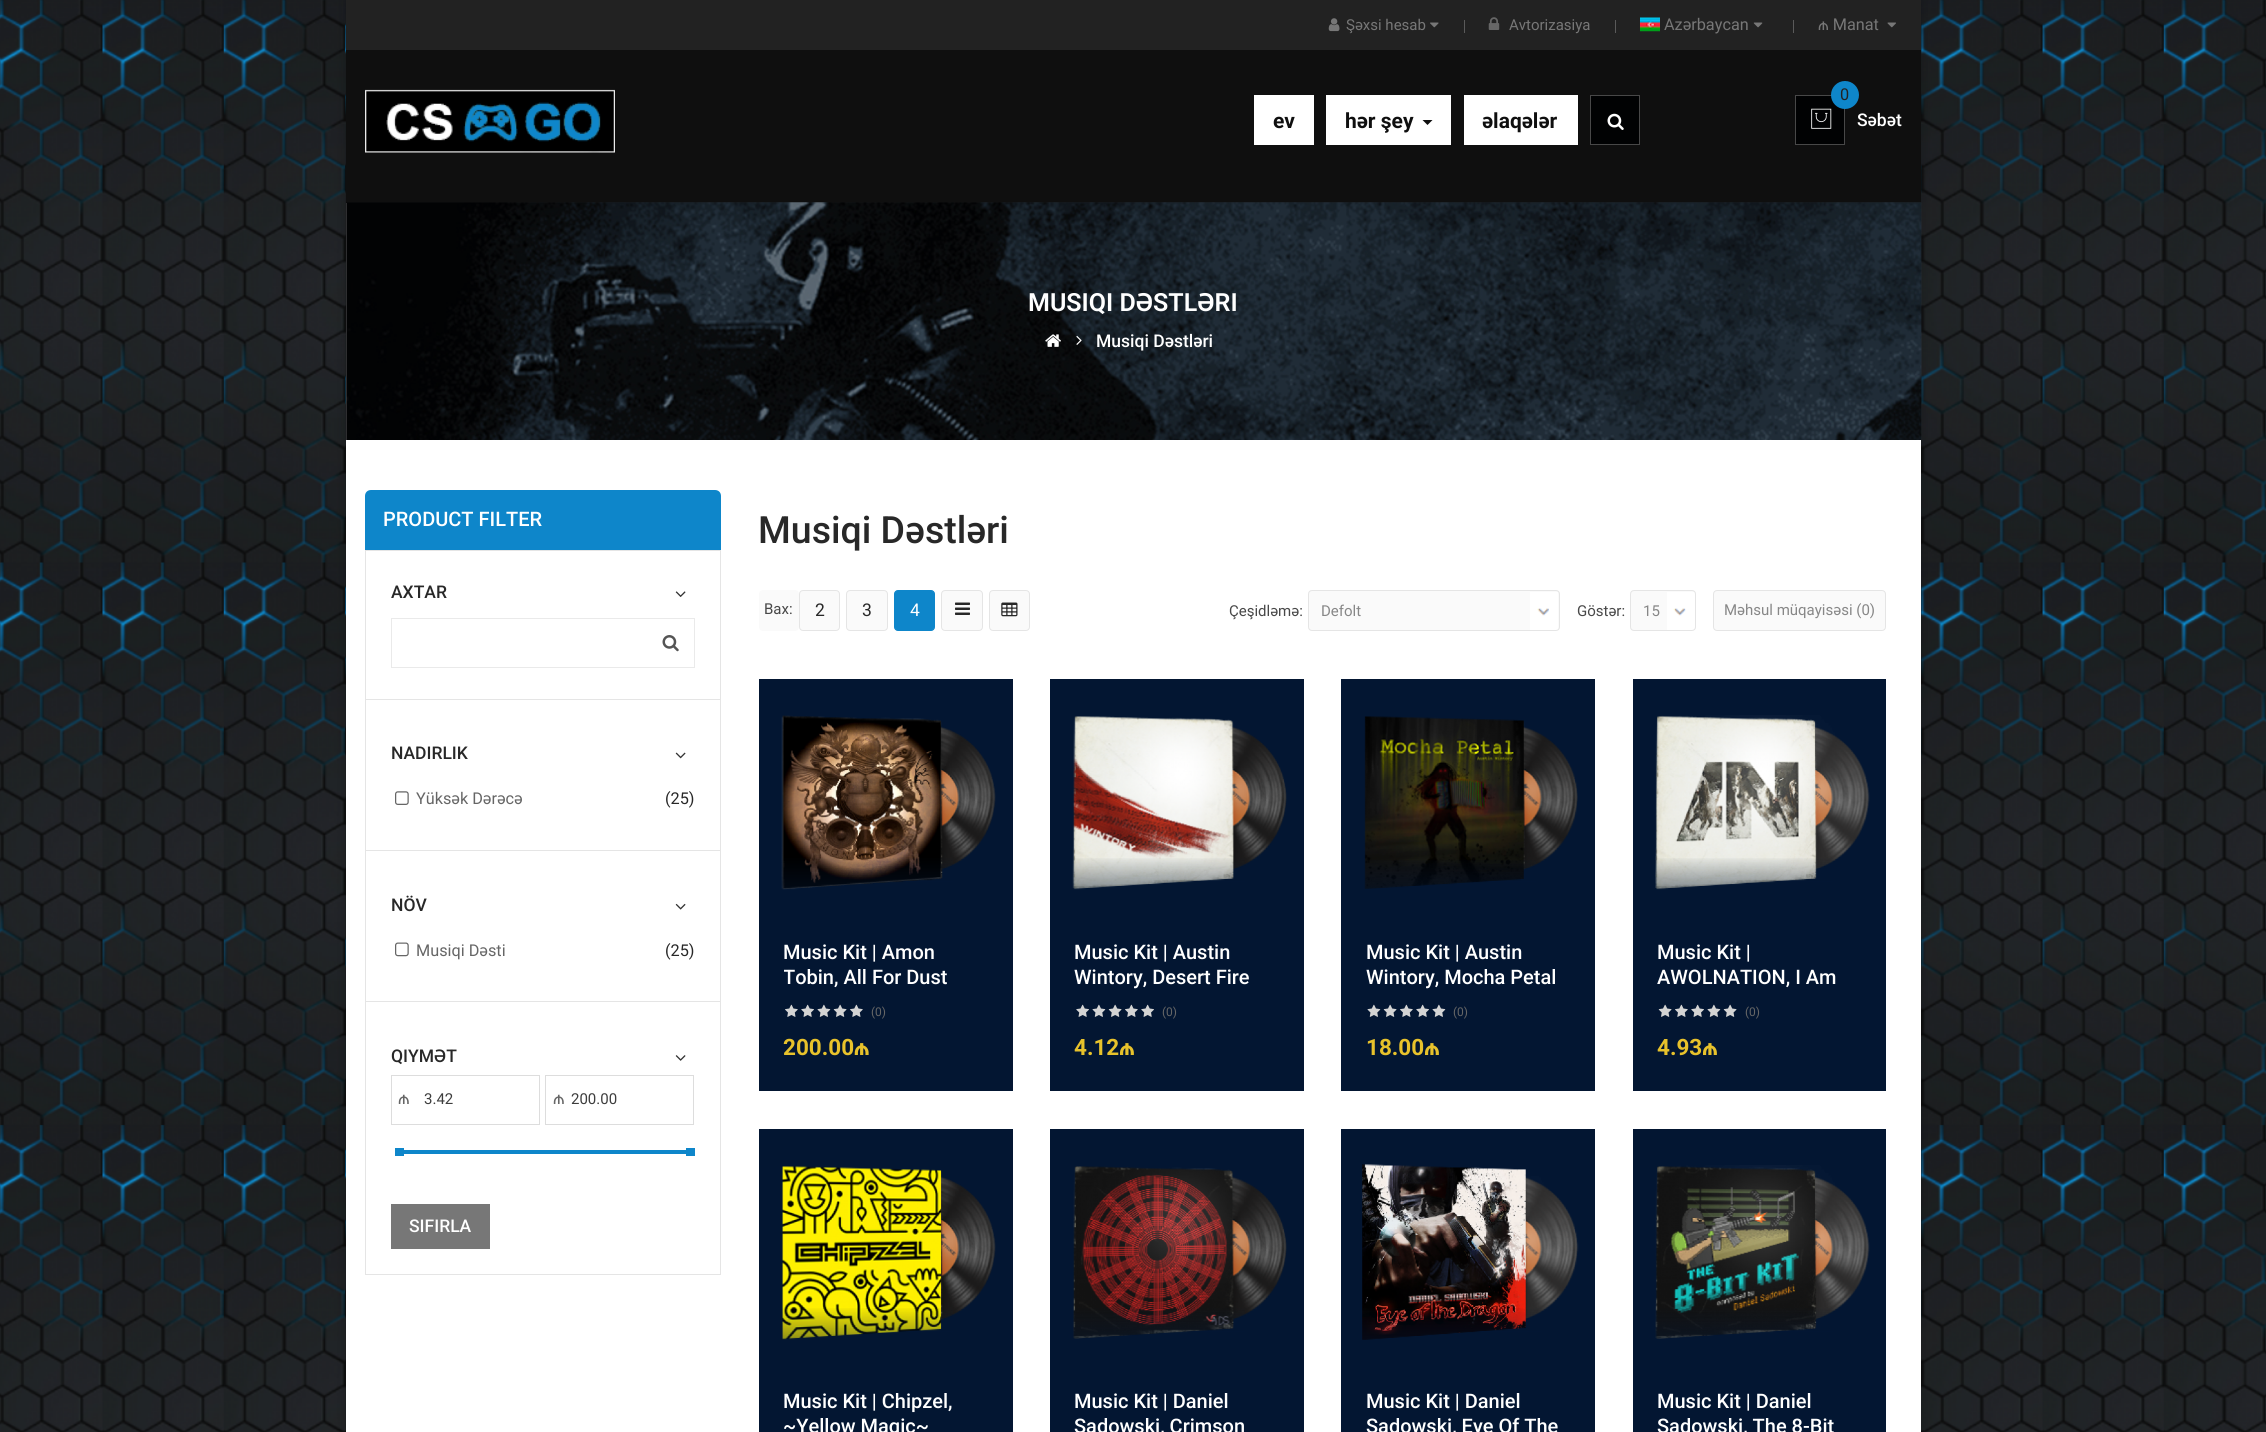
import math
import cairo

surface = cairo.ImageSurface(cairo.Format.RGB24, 2266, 1432)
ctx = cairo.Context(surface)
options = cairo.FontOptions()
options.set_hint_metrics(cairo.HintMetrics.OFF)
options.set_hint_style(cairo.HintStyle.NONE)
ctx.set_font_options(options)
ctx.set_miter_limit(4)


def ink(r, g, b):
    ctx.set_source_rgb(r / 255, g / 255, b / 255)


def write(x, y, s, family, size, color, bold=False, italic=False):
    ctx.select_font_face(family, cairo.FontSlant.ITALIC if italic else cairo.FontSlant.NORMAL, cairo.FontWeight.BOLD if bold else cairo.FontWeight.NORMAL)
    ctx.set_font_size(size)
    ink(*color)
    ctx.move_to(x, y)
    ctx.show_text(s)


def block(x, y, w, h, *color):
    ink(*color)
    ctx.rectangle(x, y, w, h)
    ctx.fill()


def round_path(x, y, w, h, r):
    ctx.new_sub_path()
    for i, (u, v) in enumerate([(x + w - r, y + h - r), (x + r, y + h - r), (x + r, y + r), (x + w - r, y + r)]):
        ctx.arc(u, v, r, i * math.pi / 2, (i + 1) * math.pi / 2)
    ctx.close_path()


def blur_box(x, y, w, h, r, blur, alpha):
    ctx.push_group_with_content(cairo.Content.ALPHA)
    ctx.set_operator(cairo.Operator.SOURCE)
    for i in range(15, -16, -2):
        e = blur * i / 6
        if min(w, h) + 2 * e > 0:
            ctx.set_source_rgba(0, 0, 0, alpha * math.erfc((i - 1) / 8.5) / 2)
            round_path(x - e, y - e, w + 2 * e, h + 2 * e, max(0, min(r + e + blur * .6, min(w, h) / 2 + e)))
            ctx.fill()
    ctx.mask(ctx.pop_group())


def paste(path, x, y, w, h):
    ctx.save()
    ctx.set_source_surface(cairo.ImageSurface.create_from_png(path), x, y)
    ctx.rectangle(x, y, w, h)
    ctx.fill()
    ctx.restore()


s1 = dict(family="Roboto", size=15, color=(119, 119, 119))
s2 = dict(family="Roboto", size=16.25, color=(119, 119, 119))
s3 = dict(family="Roboto", size=21, color=(15, 15, 15), bold=True)
s4 = dict(family="Roboto", size=16.25, color=(34, 34, 34))
s5 = dict(family="Roboto Medium", size=17.5, color=(255, 255, 255))
s6 = dict(family="Roboto SemiBold", size=25, color=(255, 255, 255))
s7 = dict(family="Roboto Medium", size=20, color=(255, 255, 255))
s8 = dict(family="Roboto Medium", size=17.5, color=(40, 40, 40))
s9 = dict(family="Roboto", size=16.25, color=(102, 102, 102))
s10 = dict(family="Roboto", size=16.25, color=(40, 40, 40))
s11 = dict(family="Roboto", size=17.5, color=(102, 102, 102))
s12 = dict(family="Roboto", size=15, color=(61, 61, 61))
s13 = dict(family="Roboto Medium", size=37.5, color=(40, 40, 40))
s14 = dict(family="Roboto", size=15, color=(72, 72, 72))
s15 = dict(family="Roboto", size=17.5, color=(40, 40, 40))
s16 = dict(family="Roboto", size=17.5, color=(255, 255, 255))
s17 = dict(family="Roboto", size=15, color=(135, 135, 135))
s18 = dict(family="Roboto", size=12, color=(102, 102, 102))
s19 = dict(family="Roboto", size=22.5, color=(232, 194, 43), bold=True)

ink(255, 255, 255)
ctx.paint()
paste("pic1.png", 0, 0, 2266, 1432)
ink(0, 0, 0)
blur_box(346, 0, 1575, 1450, 0, 6, 0.2)
block(346, 203, 1575, 1229, 255, 255, 255)
block(346, 50, 1575, 153, 15, 15, 15)
block(346, 0, 1575, 50, 34, 34, 34)
paste("pic2.png", 1328, 18, 12, 14)
write(1346, 30, "Şəxsi hesab", **s1)
paste("pic3.png", 1430, 22, 9, 6)
block(1464, 20, 1, 13, 90, 90, 90)
paste("pic4.png", 1488, 17, 12, 13)
write(1509, 30, "Avtorizasiya", **s1)
block(1615, 20, 1, 13, 90, 90, 90)
paste("pic5.png", 1640, 17, 20, 15)
write(1664, 30, "Azərbaycan", **s2)
paste("pic6.png", 1753, 22, 10, 6)
block(1793, 20, 1, 13, 90, 90, 90)
write(1818, 30, "₼ Manat", **s2)
paste("pic7.png", 1887, 22, 9, 6)
paste("pic8.png", 365, 89, 250, 64)
block(1254, 95, 60, 50, 255, 255, 255)
write(1273, 128, "ev", **s3)
block(1326, 95, 125, 50, 255, 255, 255)
write(1345, 128, "hər şey", **s3)
ctx.new_path()
ctx.move_to(1422.5, 120)
ctx.line_to(1432.5, 120)
ctx.line_to(1427.5, 125)
ctx.close_path()
ctx.fill()
block(1464, 95, 114, 50, 255, 255, 255)
write(1482, 128, "əlaqələr", **s3)
ink(1, 2, 3)
ctx.rectangle(1590.5, 95.5, 49, 49)
ctx.fill_preserve()
ink(72, 72, 72)
ctx.set_line_width(1)
ctx.stroke()
paste("pic9.png", 1607, 113, 17, 17)
ink(1, 2, 3)
ctx.rectangle(1795.5, 95.5, 49, 49)
ctx.fill_preserve()
ink(72, 72, 72)
ctx.stroke()
paste("pic10.png", 1811, 108, 21, 21)
ink(14, 134, 202)
ctx.arc(1845, 95, 14, 0, 2 * math.pi)
ctx.fill()
write(1840, 100, "0", **s4)
write(1857, 126, "Səbət", **s5)
paste("pic11.png", 346, 202, 1576, 238)
ctx.set_source_rgba(0, 0, 0, 0.3)
ctx.rectangle(346, 203, 1575, 237)
ctx.fill()
write(1028, 311, "MUSIQI DƏSTLƏRI", **s6)
paste("pic12.png", 1045, 334, 16, 13)
paste("pic13.png", 1076, 335, 6, 10)
write(1096, 347, "Musiqi Dəstləri", **s5)
ink(14, 134, 202)
ctx.new_path()
ctx.move_to(371, 490)
ctx.line_to(715, 490)
ctx.curve_to(718.5, 490, 721, 492.5, 721, 496)
ctx.line_to(721, 550)
ctx.line_to(365, 550)
ctx.line_to(365, 496)
ctx.curve_to(365, 492.5, 367.5, 490, 371, 490)
ctx.close_path()
ctx.fill()
write(383, 526, "PRODUCT FILTER", **s7)
ctx.rectangle(365.5, 550.5, 355, 724)
ink(229, 229, 229)
ctx.stroke()
block(366, 699, 354, 1, 229, 229, 229)
write(391, 598, "AXTAR", **s8)
paste("pic14.png", 675, 591, 11, 6)
ctx.rectangle(391.5, 618.5, 303, 49)
ink(234, 234, 234)
ctx.stroke()
paste("pic15.png", 662, 635, 17, 17)
block(366, 850, 354, 1, 229, 229, 229)
write(391, 759, "NADIRLIK", **s8)
paste("pic16.png", 675, 752, 11, 7)
paste("pic17.png", 395, 791, 14, 14)
write(416, 804, "Yüksək Dərəcə", **s9)
write(665, 804, "(25)", **s10)
block(366, 1001, 354, 1, 229, 229, 229)
write(391, 911, "NÖV", **s8)
paste("pic18.png", 675, 903, 11, 7)
paste("pic19.png", 395, 942, 14, 15)
write(416, 956, "Musiqi Dəsti", **s9)
write(665, 956, "(25)", **s10)
write(391, 1062, "QIYMƏT", **s8)
paste("pic20.png", 675, 1055, 11, 6)
ctx.rectangle(391.5, 1075.5, 148, 49)
ink(221, 221, 221)
ctx.stroke()
write(398, 1104, "₼", **s11)
write(424, 1104, "3.42", **s12)
ctx.rectangle(545.5, 1075.5, 148, 49)
ink(221, 221, 221)
ctx.stroke()
write(553, 1104, "₼", **s11)
write(571, 1104, "200.00", **s12)
block(404, 1150, 282, 4, 14, 134, 202)
block(395, 1148, 9, 8, 14, 134, 202)
block(686, 1148, 9, 8, 14, 134, 202)
block(391, 1204, 99, 45, 119, 119, 119)
write(409, 1232, "SIFIRLA", **s5)
write(758, 543, "Musiqi Dəstləri", **s13)
ink(250, 250, 250)
round_path(759, 590, 40, 41, 4)
ctx.fill()
write(764, 614, "Bax:", **s14)
ink(250, 250, 250)
round_path(799.5, 590.5, 40, 40, 3.5)
ctx.fill_preserve()
ink(229, 229, 229)
ctx.stroke()
write(815, 616, "2", **s15)
ink(250, 250, 250)
round_path(846.5, 590.5, 41, 40, 3.5)
ctx.fill_preserve()
ink(229, 229, 229)
ctx.stroke()
write(862, 616, "3", **s15)
ink(14, 134, 202)
round_path(894.5, 590.5, 40, 40, 3.5)
ctx.fill_preserve()
ctx.stroke()
write(910, 616, "4", **s16)
ink(250, 250, 250)
round_path(941.5, 590.5, 41, 40, 3.5)
ctx.fill_preserve()
ink(229, 229, 229)
ctx.stroke()
paste("pic21.png", 955, 602, 15, 13)
ink(250, 250, 250)
round_path(989.5, 590.5, 40, 40, 3.5)
ctx.fill_preserve()
ink(229, 229, 229)
ctx.stroke()
paste("pic22.png", 1001, 602, 17, 15)
write(1229, 616, "Çeşidləmə:", **s14)
ink(250, 250, 250)
round_path(1308, 590, 252, 41, 4)
ctx.fill()
paste("pic23.png", 1530, 592, 28, 39)
round_path(1308.5, 590.5, 251, 40, 3.5)
ink(229, 229, 229)
ctx.stroke()
write(1321, 616, "Defolt", **s17)
write(1577, 616, "Göstər:", **s14)
ink(250, 250, 250)
round_path(1630, 590, 66, 41, 4)
ctx.fill()
paste("pic24.png", 1667, 592, 28, 39)
round_path(1630.5, 590.5, 65, 40, 3.5)
ink(229, 229, 229)
ctx.stroke()
write(1643, 616, "15", **s17)
ink(250, 250, 250)
round_path(1713.5, 590.5, 172, 40, 3.5)
ctx.fill_preserve()
ink(229, 229, 229)
ctx.stroke()
write(1724, 615, "Məhsul müqayisəsi (0)", **s17)
block(759, 679, 254, 412, 3, 22, 50)
paste("pic25.png", 781, 715, 215, 175)
gradient = cairo.LinearGradient(886, 933, 886, 856)
gradient.add_color_stop_rgba(0, 0.012, 0.086, 0.196, 1)
gradient.add_color_stop_rgba(1, 0.012, 0.086, 0.196, 0)
ctx.set_source(gradient)
ctx.rectangle(781, 858, 172, 32)
ctx.fill()
write(783, 959, "Music Kit | Amon", **s7)
ctx.save()
ctx.rectangle(784, 939, 204, 50)
ctx.clip()
write(783, 984, "Tobin, All For Dust", **s7)
ctx.restore()
paste("pic26.png", 785, 1004, 13, 13)
paste("pic27.png", 801, 1004, 13, 13)
paste("pic28.png", 817, 1004, 14, 13)
paste("pic29.png", 833, 1004, 14, 13)
paste("pic26.png", 850, 1004, 13, 13)
write(871, 1016, "(0)", **s18)
write(783, 1055, "200.00₼", **s19)
block(1050, 679, 254, 412, 3, 22, 50)
paste("pic30.png", 1072, 716, 215, 174)
gradient = cairo.LinearGradient(1177, 933, 1177, 856)
gradient.add_color_stop_rgba(0, 0.012, 0.086, 0.196, 1)
gradient.add_color_stop_rgba(1, 0.012, 0.086, 0.196, 0)
ctx.set_source(gradient)
ctx.rectangle(1072, 858, 173, 32)
ctx.fill()
write(1074, 959, "Music Kit | Austin", **s7)
write(1074, 984, "Wintory, Desert Fire", **s7)
paste("pic27.png", 1076, 1004, 13, 13)
paste("pic28.png", 1092, 1004, 14, 13)
paste("pic29.png", 1108, 1004, 14, 13)
paste("pic26.png", 1125, 1004, 13, 13)
paste("pic27.png", 1141, 1004, 13, 13)
write(1162, 1016, "(0)", **s18)
write(1074, 1055, "4.12₼", **s19)
block(1341, 679, 254, 412, 3, 22, 50)
paste("pic31.png", 1364, 716, 214, 173)
gradient = cairo.LinearGradient(1468, 933, 1468, 856)
gradient.add_color_stop_rgba(0, 0.012, 0.086, 0.196, 1)
gradient.add_color_stop_rgba(1, 0.012, 0.086, 0.196, 0)
ctx.set_source(gradient)
ctx.rectangle(1365, 860, 171, 29)
ctx.fill()
write(1366, 959, "Music Kit | Austin", **s7)
write(1366, 984, "Wintory, Mocha Petal", **s7)
paste("pic28.png", 1367, 1004, 14, 13)
paste("pic29.png", 1383, 1004, 14, 13)
paste("pic26.png", 1400, 1004, 13, 13)
paste("pic27.png", 1416, 1004, 13, 13)
paste("pic28.png", 1432, 1004, 14, 13)
write(1453, 1016, "(0)", **s18)
write(1366, 1055, "18.00₼", **s19)
block(1633, 679, 253, 412, 3, 22, 50)
paste("pic32.png", 1655, 715, 215, 175)
gradient = cairo.LinearGradient(1759, 933, 1759, 856)
gradient.add_color_stop_rgba(0, 0.012, 0.086, 0.196, 1)
gradient.add_color_stop_rgba(1, 0.012, 0.086, 0.196, 0)
ctx.set_source(gradient)
ctx.rectangle(1655, 858, 178, 32)
ctx.fill()
write(1657, 959, "Music Kit |", **s7)
write(1657, 984, "AWOLNATION, I Am", **s7)
paste("pic29.png", 1658, 1004, 14, 13)
paste("pic26.png", 1675, 1004, 13, 13)
paste("pic27.png", 1691, 1004, 13, 13)
paste("pic28.png", 1707, 1004, 14, 13)
paste("pic29.png", 1723, 1004, 14, 13)
write(1745, 1016, "(0)", **s18)
write(1657, 1055, "4.93₼", **s19)
block(759, 1129, 254, 303, 3, 22, 50)
paste("pic33.png", 782, 1166, 214, 174)
gradient = cairo.LinearGradient(886, 1383, 886, 1306)
gradient.add_color_stop_rgba(0, 0.012, 0.086, 0.196, 1)
gradient.add_color_stop_rgba(1, 0.012, 0.086, 0.196, 0)
ctx.set_source(gradient)
ctx.rectangle(782, 1308, 171, 32)
ctx.fill()
write(783, 1408, "Music Kit | Chipzel,", **s7)
write(783, 1433, "~Yellow Magic~", **s7)
block(1050, 1129, 254, 303, 3, 22, 50)
paste("pic34.png", 1073, 1166, 214, 173)
gradient = cairo.LinearGradient(1177, 1383, 1177, 1306)
gradient.add_color_stop_rgba(0, 0.012, 0.086, 0.196, 1)
gradient.add_color_stop_rgba(1, 0.012, 0.086, 0.196, 0)
ctx.set_source(gradient)
ctx.rectangle(1073, 1308, 172, 31)
ctx.fill()
write(1074, 1408, "Music Kit | Daniel", **s7)
write(1074, 1433, "Sadowski, Crimson", **s7)
block(1341, 1129, 254, 303, 3, 22, 50)
paste("pic35.png", 1362, 1164, 217, 176)
gradient = cairo.LinearGradient(1468, 1383, 1468, 1306)
gradient.add_color_stop_rgba(0, 0.012, 0.086, 0.196, 1)
gradient.add_color_stop_rgba(1, 0.012, 0.086, 0.196, 0)
ctx.set_source(gradient)
ctx.rectangle(1362, 1308, 180, 32)
ctx.fill()
write(1366, 1408, "Music Kit | Daniel", **s7)
write(1366, 1433, "Sadowski, Eye Of The", **s7)
block(1633, 1129, 253, 303, 3, 22, 50)
paste("pic36.png", 1655, 1165, 215, 174)
gradient = cairo.LinearGradient(1759, 1383, 1759, 1306)
gradient.add_color_stop_rgba(0, 0.012, 0.086, 0.196, 1)
gradient.add_color_stop_rgba(1, 0.012, 0.086, 0.196, 0)
ctx.set_source(gradient)
ctx.rectangle(1655, 1308, 178, 31)
ctx.fill()
write(1657, 1408, "Music Kit | Daniel", **s7)
write(1657, 1433, "Sadowski, The 8-Bit", **s7)
surface.write_to_png("screenshot.png")
